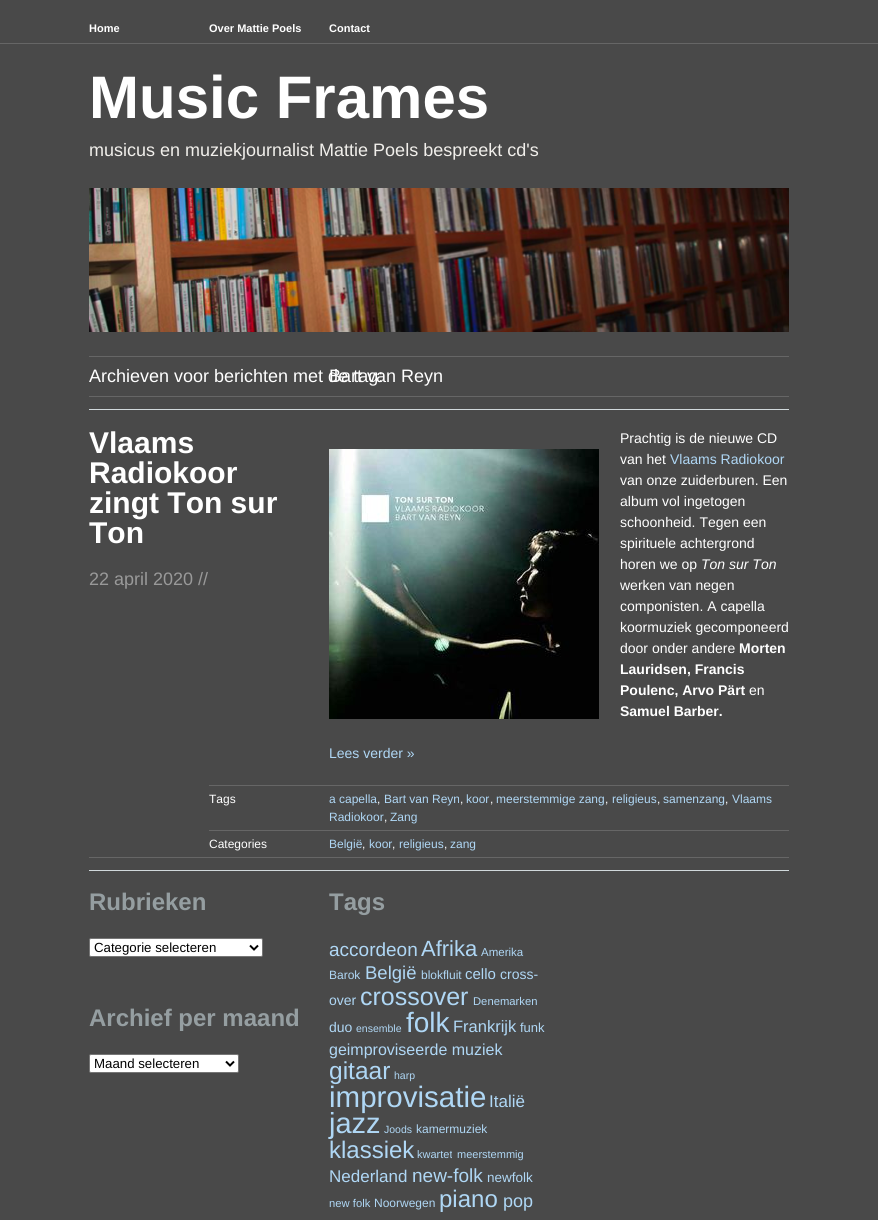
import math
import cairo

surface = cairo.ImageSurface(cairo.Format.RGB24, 878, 1220)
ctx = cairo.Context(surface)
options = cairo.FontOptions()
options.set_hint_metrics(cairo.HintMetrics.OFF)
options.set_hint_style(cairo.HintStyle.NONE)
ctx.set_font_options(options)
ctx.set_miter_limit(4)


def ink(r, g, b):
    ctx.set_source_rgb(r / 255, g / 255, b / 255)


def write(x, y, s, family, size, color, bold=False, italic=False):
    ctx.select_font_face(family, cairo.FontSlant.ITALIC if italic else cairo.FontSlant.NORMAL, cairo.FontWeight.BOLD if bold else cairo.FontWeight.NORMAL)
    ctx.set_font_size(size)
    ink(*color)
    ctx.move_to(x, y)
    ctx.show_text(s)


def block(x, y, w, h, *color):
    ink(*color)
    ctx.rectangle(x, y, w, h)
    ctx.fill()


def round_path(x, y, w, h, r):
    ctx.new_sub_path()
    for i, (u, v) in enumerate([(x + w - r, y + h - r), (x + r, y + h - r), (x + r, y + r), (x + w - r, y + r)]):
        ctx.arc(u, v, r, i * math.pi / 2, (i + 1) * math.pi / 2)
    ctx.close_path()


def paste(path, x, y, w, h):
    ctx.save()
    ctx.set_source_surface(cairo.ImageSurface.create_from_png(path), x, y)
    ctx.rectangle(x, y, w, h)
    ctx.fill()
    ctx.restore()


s1 = dict(family="Liberation Sans", size=11, color=(255, 255, 255), bold=True)
s2 = dict(family="Liberation Sans", size=60, color=(255, 255, 255), bold=True)
s3 = dict(family="Liberation Sans", size=18, color=(241, 239, 235))
s4 = dict(family="Liberation Sans", size=18, color=(255, 255, 255))
s5 = dict(family="Liberation Sans", size=30, color=(255, 255, 255), bold=True)
s6 = dict(family="Liberation Sans", size=18, color=(153, 153, 153))
s7 = dict(family="Liberation Sans", size=14, color=(255, 255, 255))
s8 = dict(family="Liberation Sans", size=14, color=(175, 215, 245))
s9 = dict(family="Liberation Sans", size=14, color=(255, 255, 255), italic=True)
s10 = dict(family="Liberation Sans", size=14, color=(255, 255, 255), bold=True)
s11 = dict(family="Liberation Sans", size=12, color=(255, 255, 255))
s12 = dict(family="Liberation Sans", size=12, color=(175, 215, 245))
s13 = dict(family="Liberation Sans", size=24, color=(149, 158, 161), bold=True)
s14 = dict(family="Liberation Sans", size=13.25, color=(0, 0, 0))
s15 = dict(family="Liberation Sans", size=19, color=(175, 215, 245))
s16 = dict(family="Liberation Sans", size=22, color=(175, 215, 245))
s17 = dict(family="Liberation Sans", size=11.5, color=(175, 215, 245))
s18 = dict(family="Liberation Sans", size=18.5, color=(175, 215, 245))
s19 = dict(family="Liberation Sans", size=15, color=(175, 215, 245))
s20 = dict(family="Liberation Sans", size=25, color=(175, 215, 245))
s21 = dict(family="Liberation Sans", size=11.25, color=(175, 215, 245))
s22 = dict(family="Liberation Sans", size=10.5, color=(175, 215, 245))
s23 = dict(family="Liberation Sans", size=28, color=(175, 215, 245))
s24 = dict(family="Liberation Sans", size=16.5, color=(175, 215, 245))
s25 = dict(family="Liberation Sans", size=13, color=(175, 215, 245))
s26 = dict(family="Liberation Sans", size=16, color=(175, 215, 245))
s27 = dict(family="Liberation Sans", size=24.5, color=(175, 215, 245))
s28 = dict(family="Liberation Sans", size=29.5, color=(175, 215, 245))
s29 = dict(family="Liberation Sans", size=17, color=(175, 215, 245))
s30 = dict(family="Liberation Sans", size=29, color=(175, 215, 245))
s31 = dict(family="Liberation Sans", size=24, color=(175, 215, 245))
s32 = dict(family="Liberation Sans", size=11, color=(175, 215, 245))
s33 = dict(family="Liberation Sans", size=13.5, color=(175, 215, 245))
s34 = dict(family="Liberation Sans", size=18, color=(175, 215, 245))

ink(73, 73, 73)
ctx.paint()
block(0, 43, 878, 1, 102, 102, 102)
write(89, 32, "Home", **s1)
write(209, 32, "Over Mattie Poels", **s1)
write(329, 32, "Contact", **s1)
write(89, 118, "Music Frames", **s2)
write(89, 156, "musicus en muziekjournalist Mattie Poels bespreekt cd's", **s3)
paste("pic1.png", 89, 188, 700, 144)
block(89, 356, 700, 1, 102, 102, 102)
write(89, 382, "Archieven voor berichten met de tag:", **s4)
write(329, 382, "Bart van Reyn", **s4)
block(89, 396, 700, 1, 102, 102, 102)
block(89, 409, 700, 1, 209, 217, 220)
write(89, 453, "Vlaams", **s5)
write(89, 483, "Radiokoor", **s5)
write(89, 513, "zingt Ton sur", **s5)
write(89, 543, "Ton", **s5)
write(89, 585, "22 april 2020 //", **s6)
write(620, 443, "Prachtig is de nieuwe CD", **s7)
paste("pic2.png", 329, 449, 270, 270)
write(620, 464, "van het", **s7)
write(670, 464, "Vlaams Radiokoor", **s8)
write(620, 485, "van onze zuiderburen. Een", **s7)
write(620, 506, "album vol ingetogen", **s7)
write(620, 527, "schoonheid. Tegen een", **s7)
write(620, 548, "spirituele achtergrond", **s7)
write(620, 569, "horen we op", **s7)
write(701, 569, "Ton sur Ton", **s9)
write(620, 590, "werken van negen", **s7)
write(620, 611, "componisten. A capella", **s7)
write(620, 632, "koormuziek gecomponeerd", **s7)
write(620, 653, "door onder andere", **s7)
write(739, 653, "Morten", **s10)
write(620, 674, "Lauridsen, Francis", **s10)
write(620, 695, "Poulenc, Arvo Pärt", **s10)
write(749, 695, "en", **s7)
write(620, 716, "Samuel Barber.", **s10)
write(329, 758, "Lees verder »", **s8)
block(209, 785, 580, 1, 102, 102, 102)
write(209, 803, "Tags", **s11)
write(329, 803, "a capella", **s12)
write(377, 803, ",", **s11)
write(384, 803, "Bart van Reyn", **s12)
write(460, 803, ",", **s11)
write(466, 803, "koor", **s12)
write(490, 803, ",", **s11)
write(496, 803, "meerstemmige zang", **s12)
write(605, 803, ",", **s11)
write(612, 803, "religieus", **s12)
write(657, 803, ",", **s11)
write(663, 803, "samenzang", **s12)
write(725, 803, ",", **s11)
write(732, 803, "Vlaams", **s12)
write(329, 821, "Radiokoor", **s12)
write(384, 821, ",", **s11)
write(390, 821, "Zang", **s12)
block(209, 830, 580, 1, 102, 102, 102)
write(209, 848, "Categories", **s11)
write(329, 848, "België", **s12)
write(362, 848, ",", **s11)
write(369, 848, "koor", **s12)
write(392, 848, ",", **s11)
write(399, 848, "religieus", **s12)
write(444, 848, ",", **s11)
write(450, 848, "zang", **s12)
block(89, 857, 700, 1, 102, 102, 102)
block(89, 870, 700, 1, 209, 217, 220)
write(89, 910, "Rubrieken", **s13)
ink(255, 255, 255)
round_path(89.5, 938.5, 173, 18, 1.5)
ctx.fill_preserve()
ink(118, 118, 118)
ctx.set_line_width(1)
ctx.stroke()
ctx.new_path()
ctx.move_to(250, 945.5)
ctx.line_to(254, 949.5)
ctx.line_to(258, 945.5)
ink(0, 0, 0)
ctx.set_line_width(2)
ctx.stroke()
write(94, 952, "Categorie selecteren", **s14)
write(89, 1026, "Archief per maand", **s13)
ink(255, 255, 255)
round_path(89.5, 1054.5, 149, 18, 1.5)
ctx.fill_preserve()
ink(118, 118, 118)
ctx.set_line_width(1)
ctx.stroke()
ctx.new_path()
ctx.move_to(226, 1061.5)
ctx.line_to(230, 1065.5)
ctx.line_to(234, 1061.5)
ink(0, 0, 0)
ctx.set_line_width(2)
ctx.stroke()
write(94, 1068, "Maand selecteren", **s14)
write(329, 910, "Tags", **s13)
write(329, 956, "accordeon", **s15)
write(421, 956, "Afrika", **s16)
write(481, 956, "Amerika", **s17)
write(329, 979, "Barok", **s12)
write(365, 979, "België", **s18)
write(421, 979, "blokfluit", **s12)
write(465, 979, "cello", **s19)
write(500, 979, "cross-", **s8)
write(329, 1005, "over", **s8)
write(360, 1005, "crossover", **s20)
write(473, 1005, "Denemarken", **s21)
write(329, 1032, "duo", **s8)
write(356, 1032, "ensemble", **s22)
write(406, 1032, "folk", **s23)
write(453, 1032, "Frankrijk", **s24)
write(520, 1032, "funk", **s25)
write(329, 1055, "geimproviseerde muziek", **s26)
write(329, 1079, "gitaar", **s27)
write(394, 1079, "harp", **s22)
write(329, 1107, "improvisatie", **s28)
write(489, 1107, "Italië", **s29)
write(329, 1133, "jazz", **s30)
write(384, 1133, "Joods", **s22)
write(416, 1133, "kamermuziek", **s12)
write(329, 1158, "klassiek", **s31)
write(417, 1158, "kwartet", **s32)
write(457, 1158, "meerstemmig", **s32)
write(329, 1182, "Nederland", **s29)
write(412, 1182, "new-folk", **s15)
write(487, 1182, "newfolk", **s33)
write(329, 1207, "new folk", **s21)
write(374, 1207, "Noorwegen", **s12)
write(439, 1207, "piano", **s31)
write(503, 1207, "pop", **s34)
surface.write_to_png("screenshot.png")
